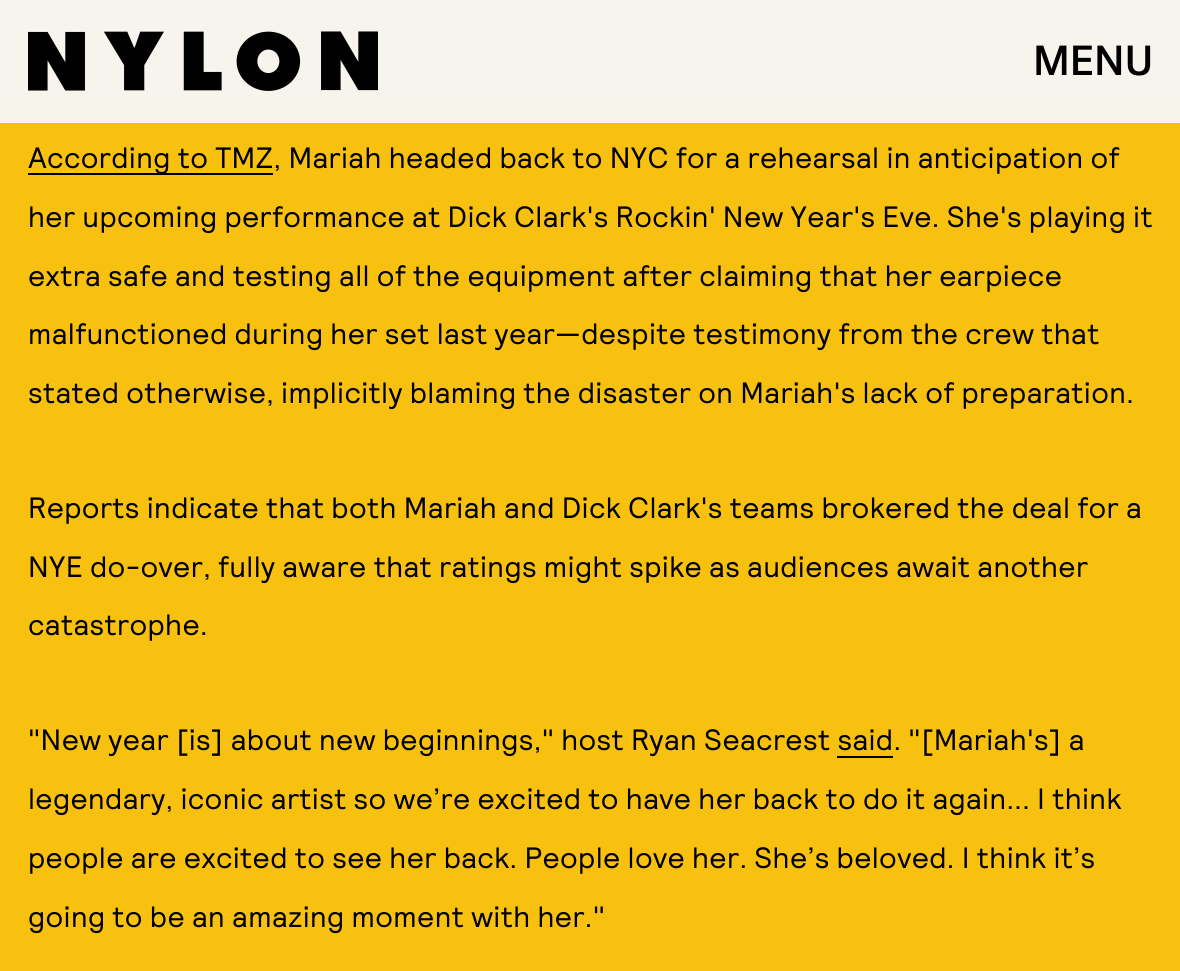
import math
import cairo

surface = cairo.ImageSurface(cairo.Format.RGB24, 1180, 971)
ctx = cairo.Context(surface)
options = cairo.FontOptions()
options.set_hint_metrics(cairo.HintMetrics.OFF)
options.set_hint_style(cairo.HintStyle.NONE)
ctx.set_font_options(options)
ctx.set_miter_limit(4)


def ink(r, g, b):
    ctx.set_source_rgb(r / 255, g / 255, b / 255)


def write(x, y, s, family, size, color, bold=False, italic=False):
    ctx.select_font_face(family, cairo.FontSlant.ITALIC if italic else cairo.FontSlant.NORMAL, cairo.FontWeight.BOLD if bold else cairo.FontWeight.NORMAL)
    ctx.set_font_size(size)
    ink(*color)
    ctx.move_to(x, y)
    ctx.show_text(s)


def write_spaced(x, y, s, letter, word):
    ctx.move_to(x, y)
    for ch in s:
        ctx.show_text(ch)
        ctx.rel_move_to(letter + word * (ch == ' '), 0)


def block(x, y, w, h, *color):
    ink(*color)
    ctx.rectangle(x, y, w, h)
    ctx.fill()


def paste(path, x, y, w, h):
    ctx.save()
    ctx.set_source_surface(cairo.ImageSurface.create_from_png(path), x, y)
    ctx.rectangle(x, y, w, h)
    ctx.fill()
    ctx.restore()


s1 = dict(family="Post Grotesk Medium", size=42, color=(0, 0, 0))

ink(249, 193, 15)
ctx.paint()
block(0, 0, 1180, 100, 246, 244, 237)
paste("pic1.png", 28, 31, 350, 60)
write(1033, 75, "MENU", **s1)
block(0, 100, 1180, 23, 246, 243, 234)
block(28, 173, 245, 2, 0, 0, 0)
ctx.select_font_face("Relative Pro")
ctx.set_font_size(29.4)
write_spaced(28, 168, "According to TMZ, Mariah headed back to NYC for a rehearsal in anticipation of", 0.35, 0)
write_spaced(28, 227, "her upcoming performance at Dick Clark's Rockin' New Year's Eve. She's playing it", 0.35, 0)
write_spaced(28, 286, "extra safe and testing all of the equipment after claiming that her earpiece", 0.35, 0)
write_spaced(28, 344, "malfunctioned during her set last year—despite testimony from the crew that", 0.35, 0)
write_spaced(28, 403, "stated otherwise, implicitly blaming the disaster on Mariah's lack of preparation.", 0.35, 0)
write_spaced(28, 518, "Reports indicate that both Mariah and Dick Clark's teams brokered the deal for a", 0.35, 0)
write_spaced(28, 577, "NYE do-over, fully aware that ratings might spike as audiences await another", 0.35, 0)
write_spaced(28, 635, "catastrophe.", 0.35, 0)
write_spaced(28, 750, "\"New year [is] about new beginnings,\" host Ryan Seacrest said. \"[Mariah's] a", 0.35, 0)
block(837, 756, 56, 2, 0, 0, 0)
write_spaced(28, 809, "legendary, iconic artist so we’re excited to have her back to do it again... I think", 0.35, 0)
write_spaced(28, 868, "people are excited to see her back. People love her. She’s beloved. I think it’s", 0.35, 0)
write_spaced(28, 927, "going to be an amazing moment with her.\"", 0.35, 0)
surface.write_to_png("screenshot.png")
